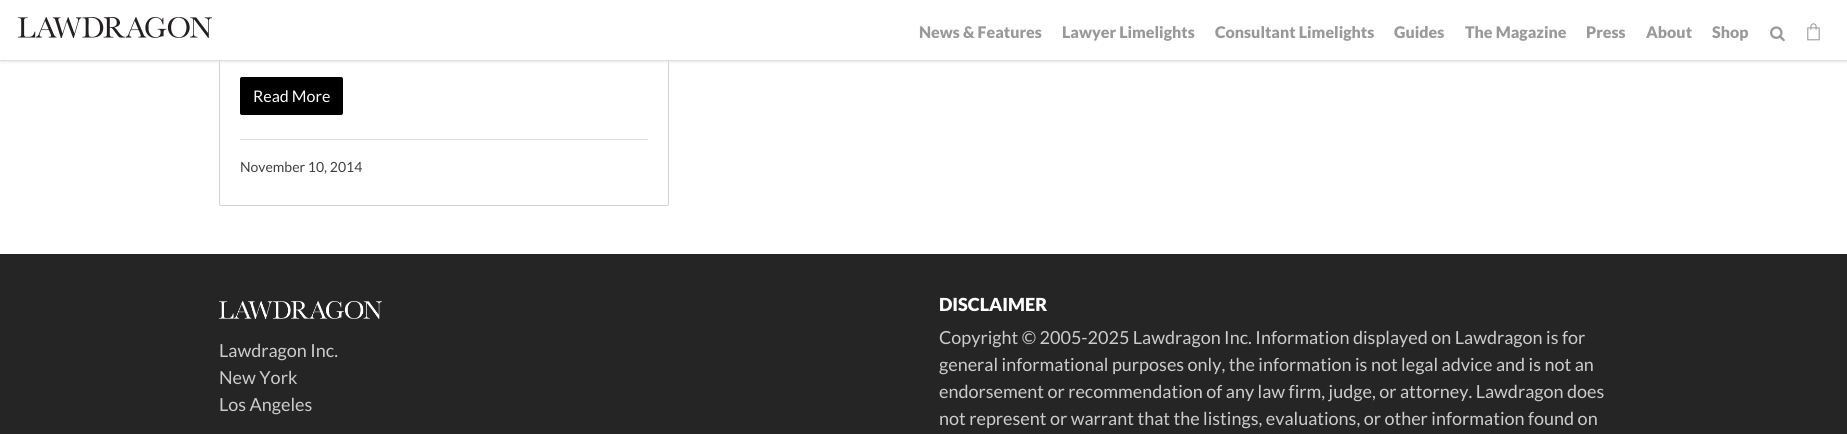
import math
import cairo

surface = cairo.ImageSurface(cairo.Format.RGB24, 1847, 434)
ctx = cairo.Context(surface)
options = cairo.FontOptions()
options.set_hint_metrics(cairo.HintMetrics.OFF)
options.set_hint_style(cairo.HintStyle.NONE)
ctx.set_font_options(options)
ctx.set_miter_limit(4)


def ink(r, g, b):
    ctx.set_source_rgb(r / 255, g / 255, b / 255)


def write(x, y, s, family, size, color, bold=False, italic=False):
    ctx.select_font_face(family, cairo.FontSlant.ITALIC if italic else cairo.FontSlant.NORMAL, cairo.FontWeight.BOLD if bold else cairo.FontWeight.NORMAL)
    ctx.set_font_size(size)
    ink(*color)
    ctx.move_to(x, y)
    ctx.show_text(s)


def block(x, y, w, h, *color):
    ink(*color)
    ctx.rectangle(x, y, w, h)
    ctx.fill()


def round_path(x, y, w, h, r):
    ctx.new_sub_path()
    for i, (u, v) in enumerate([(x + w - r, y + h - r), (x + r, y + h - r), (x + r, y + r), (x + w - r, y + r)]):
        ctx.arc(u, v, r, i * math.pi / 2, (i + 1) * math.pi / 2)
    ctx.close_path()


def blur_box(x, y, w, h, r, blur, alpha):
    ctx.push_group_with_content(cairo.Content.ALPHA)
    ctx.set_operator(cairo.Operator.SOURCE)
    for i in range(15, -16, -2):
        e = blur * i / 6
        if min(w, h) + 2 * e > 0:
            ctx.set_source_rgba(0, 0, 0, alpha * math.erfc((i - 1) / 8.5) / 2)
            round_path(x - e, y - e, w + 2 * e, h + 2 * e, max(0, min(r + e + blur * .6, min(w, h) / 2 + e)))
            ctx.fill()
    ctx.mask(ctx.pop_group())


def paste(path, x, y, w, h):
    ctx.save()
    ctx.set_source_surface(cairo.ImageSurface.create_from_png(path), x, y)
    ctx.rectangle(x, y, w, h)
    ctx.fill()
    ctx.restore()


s1 = dict(family="Lato Black", size=16, color=(153, 153, 153))
s2 = dict(family="Lato", size=16, color=(255, 255, 255))
s3 = dict(family="Lato", size=14, color=(64, 64, 64))
s4 = dict(family="Lato", size=18, color=(204, 204, 204))
s5 = dict(family="Lato Black", size=18, color=(255, 255, 255))

ink(255, 255, 255)
ctx.paint()
round_path(219.5, -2.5, 449, 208, 1.5)
ink(210, 210, 210)
ctx.set_line_width(1)
ctx.stroke()
ink(221, 221, 221)
blur_box(1, 1, 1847, 61, 0, 1.5, 0.7)
block(0, 0, 1847, 60, 255, 255, 255)
block(0, 60, 1847, 1, 221, 221, 221)
paste("pic1.png", 18, 17, 194, 21)
write(919, 38, "News & Features", **s1)
write(1062, 38, "Lawyer Limelights", **s1)
write(1215, 38, "Consultant Limelights", **s1)
write(1394, 38, "Guides", **s1)
write(1465, 38, "The Magazine", **s1)
write(1586, 38, "Press", **s1)
write(1646, 38, "About", **s1)
write(1712, 38, "Shop", **s1)
paste("pic2.png", 1770, 26, 15, 16)
paste("pic3.png", 1807, 23, 13, 18)
ink(0, 0, 0)
round_path(240.5, 77.5, 102, 37, 1.5)
ctx.fill_preserve()
ctx.stroke()
write(253, 102, "Read More", **s2)
block(240, 139, 408, 1, 222, 226, 230)
write(240, 172, "November 10, 2014", **s3)
block(0, 254, 1847, 180, 37, 37, 37)
paste("pic4.png", 219, 301, 163, 18)
write(219, 357, "Lawdragon Inc.", **s4)
write(219, 384, "New York", **s4)
write(219, 411, "Los Angeles", **s4)
write(939, 311, "DISCLAIMER", **s5)
write(939, 344, "Copyright © 2005-2025 Lawdragon Inc. Information displayed on Lawdragon is for", **s4)
write(939, 371, "general informational purposes only, the information is not legal advice and is not an", **s4)
write(939, 398, "endorsement or recommendation of any law firm, judge, or attorney. Lawdragon does", **s4)
write(939, 425, "not represent or warrant that the listings, evaluations, or other information found on", **s4)
surface.write_to_png("screenshot.png")
